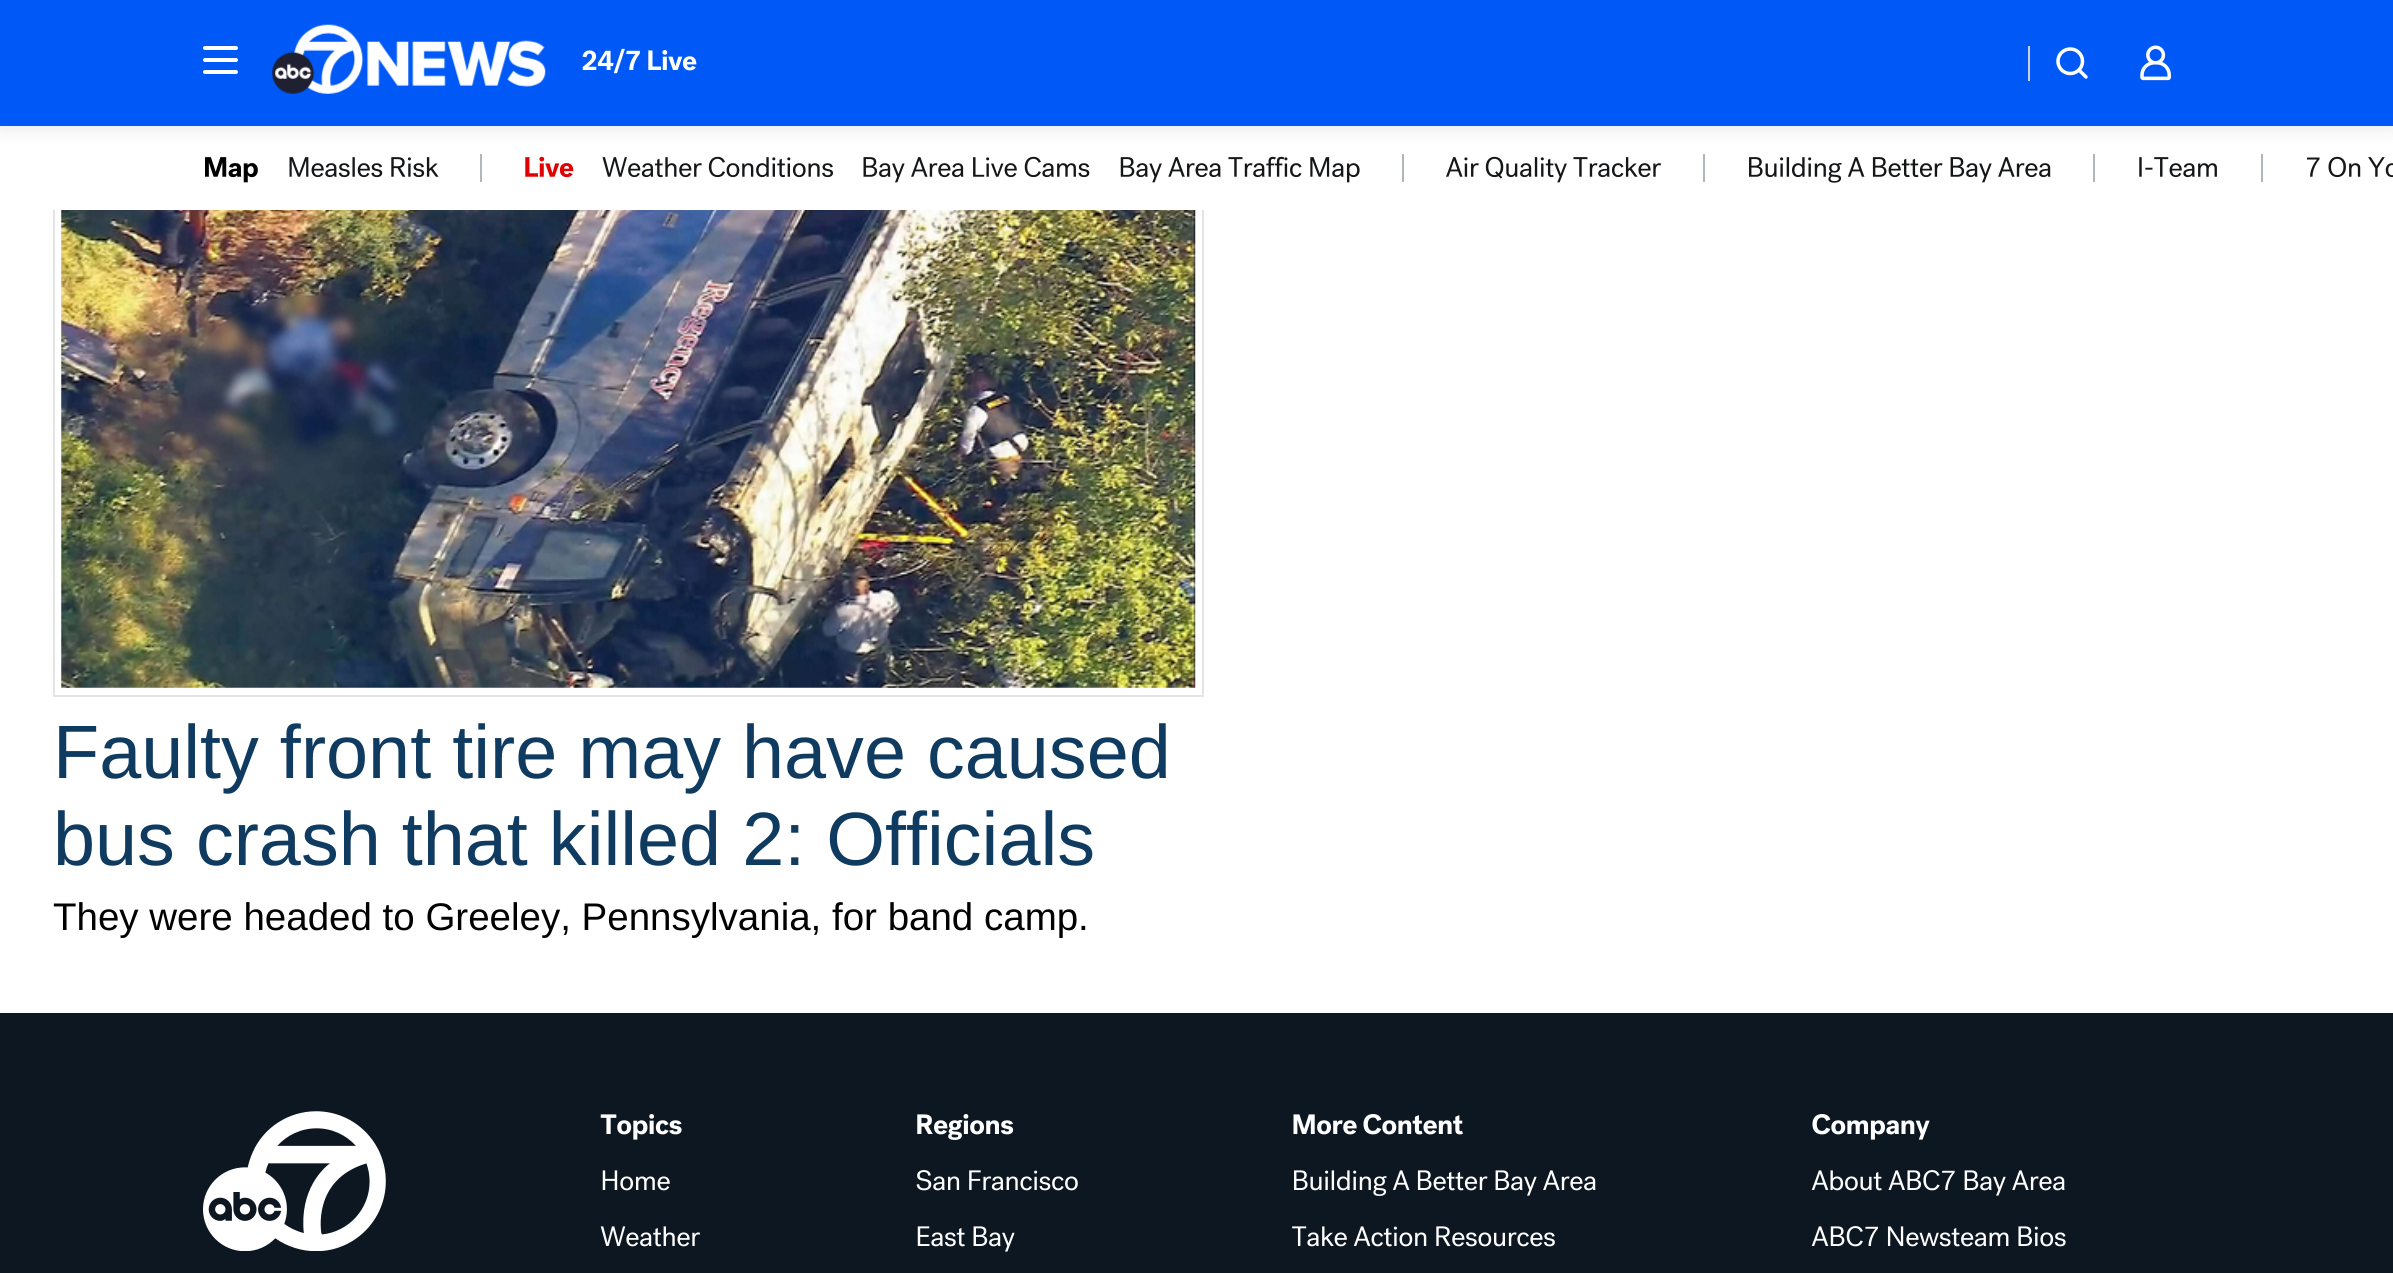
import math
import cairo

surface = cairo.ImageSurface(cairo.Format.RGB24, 2393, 1273)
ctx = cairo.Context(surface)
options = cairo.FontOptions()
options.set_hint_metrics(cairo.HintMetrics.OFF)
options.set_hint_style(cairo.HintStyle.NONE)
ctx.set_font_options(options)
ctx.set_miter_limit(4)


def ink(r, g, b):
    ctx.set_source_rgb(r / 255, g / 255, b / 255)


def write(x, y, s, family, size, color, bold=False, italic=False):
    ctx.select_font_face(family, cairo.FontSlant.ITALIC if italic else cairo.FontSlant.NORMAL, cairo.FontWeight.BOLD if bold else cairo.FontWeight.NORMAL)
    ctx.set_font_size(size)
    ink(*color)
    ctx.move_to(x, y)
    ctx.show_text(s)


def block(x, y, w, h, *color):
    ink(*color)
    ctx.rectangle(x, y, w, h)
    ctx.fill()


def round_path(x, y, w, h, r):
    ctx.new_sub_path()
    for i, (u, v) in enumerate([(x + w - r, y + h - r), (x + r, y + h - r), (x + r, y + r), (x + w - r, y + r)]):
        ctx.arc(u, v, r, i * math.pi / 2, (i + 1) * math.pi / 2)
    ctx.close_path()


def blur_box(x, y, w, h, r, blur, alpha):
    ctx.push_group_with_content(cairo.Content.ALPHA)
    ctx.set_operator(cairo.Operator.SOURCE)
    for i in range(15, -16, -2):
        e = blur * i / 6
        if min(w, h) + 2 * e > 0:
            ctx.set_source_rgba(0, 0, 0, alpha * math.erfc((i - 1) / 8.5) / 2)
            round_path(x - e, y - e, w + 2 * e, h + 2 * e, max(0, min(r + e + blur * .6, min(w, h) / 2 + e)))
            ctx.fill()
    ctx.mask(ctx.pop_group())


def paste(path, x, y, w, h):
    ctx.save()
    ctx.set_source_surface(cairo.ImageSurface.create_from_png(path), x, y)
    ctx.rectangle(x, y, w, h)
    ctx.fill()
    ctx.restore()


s1 = dict(family="Liberation Sans", size=75.6, color=(16, 59, 97))
s2 = dict(family="Liberation Sans", size=38.5, color=(0, 0, 0))

ink(255, 255, 255)
ctx.paint()
ctx.rectangle(54, 41, 1149, 655)
ink(228, 228, 228)
ctx.stroke()
block(53, 126, 1151, 84, 255, 255, 255)
paste("pic5.png", 205, 157, 53, 26)
paste("pic6.png", 289, 157, 150, 21)
block(480, 154, 2, 28, 176, 181, 190)
paste("pic7.png", 525, 156, 49, 22)
paste("pic8.png", 602, 156, 231, 22)
paste("pic9.png", 863, 156, 227, 27)
paste("pic10.png", 1120, 156, 240, 27)
block(1402, 154, 2, 28, 176, 181, 190)
paste("pic11.png", 1446, 156, 215, 27)
block(1703, 154, 2, 28, 176, 181, 190)
paste("pic12.png", 1749, 157, 302, 26)
block(2093, 154, 2, 28, 176, 181, 190)
paste("pic13.png", 2139, 157, 78, 21)
block(2261, 154, 2, 28, 176, 181, 190)
paste("pic14.png", 2306, 156, 87, 22)
ink(0, 0, 0)
blur_box(0, 4, 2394, 126, 0, 9, 0.08)
block(0, 0, 2393, 126, 0, 88, 246)
ink(255, 255, 255)
round_path(203, 58, 35, 4, 2)
ctx.fill()
round_path(203, 46, 35, 4, 2)
ctx.fill()
round_path(203, 70, 35, 4, 2)
ctx.fill()
paste("pic1.png", 272, 24, 274, 70)
paste("pic2.png", 582, 48, 115, 26)
block(2028, 46, 2, 35, 206, 207, 207)
paste("pic3.png", 2056, 47, 32, 32)
paste("pic4.png", 2140, 45, 31, 36)
paste("pic15.png", 61, 210, 1135, 478)
write(53, 778, "Faulty front tire may have caused", **s1)
write(53, 865, "bus crash that killed 2: Officials", **s1)
write(53, 930, "They were headed to Greeley, Pennsylvania, for band camp.", **s2)
block(0, 1013, 2393, 260, 13, 23, 33)
paste("pic16.png", 203, 1111, 183, 140)
paste("pic17.png", 600, 1114, 82, 26)
paste("pic18.png", 602, 1170, 68, 21)
paste("pic19.png", 600, 1226, 100, 21)
paste("pic20.png", 917, 1114, 97, 26)
paste("pic21.png", 916, 1170, 162, 21)
paste("pic22.png", 917, 1226, 98, 26)
paste("pic23.png", 1293, 1114, 170, 21)
paste("pic24.png", 1294, 1170, 302, 26)
paste("pic25.png", 1292, 1226, 263, 21)
paste("pic26.png", 1812, 1114, 118, 26)
paste("pic27.png", 1811, 1170, 254, 26)
paste("pic28.png", 1811, 1226, 255, 21)
surface.write_to_png("screenshot.png")
